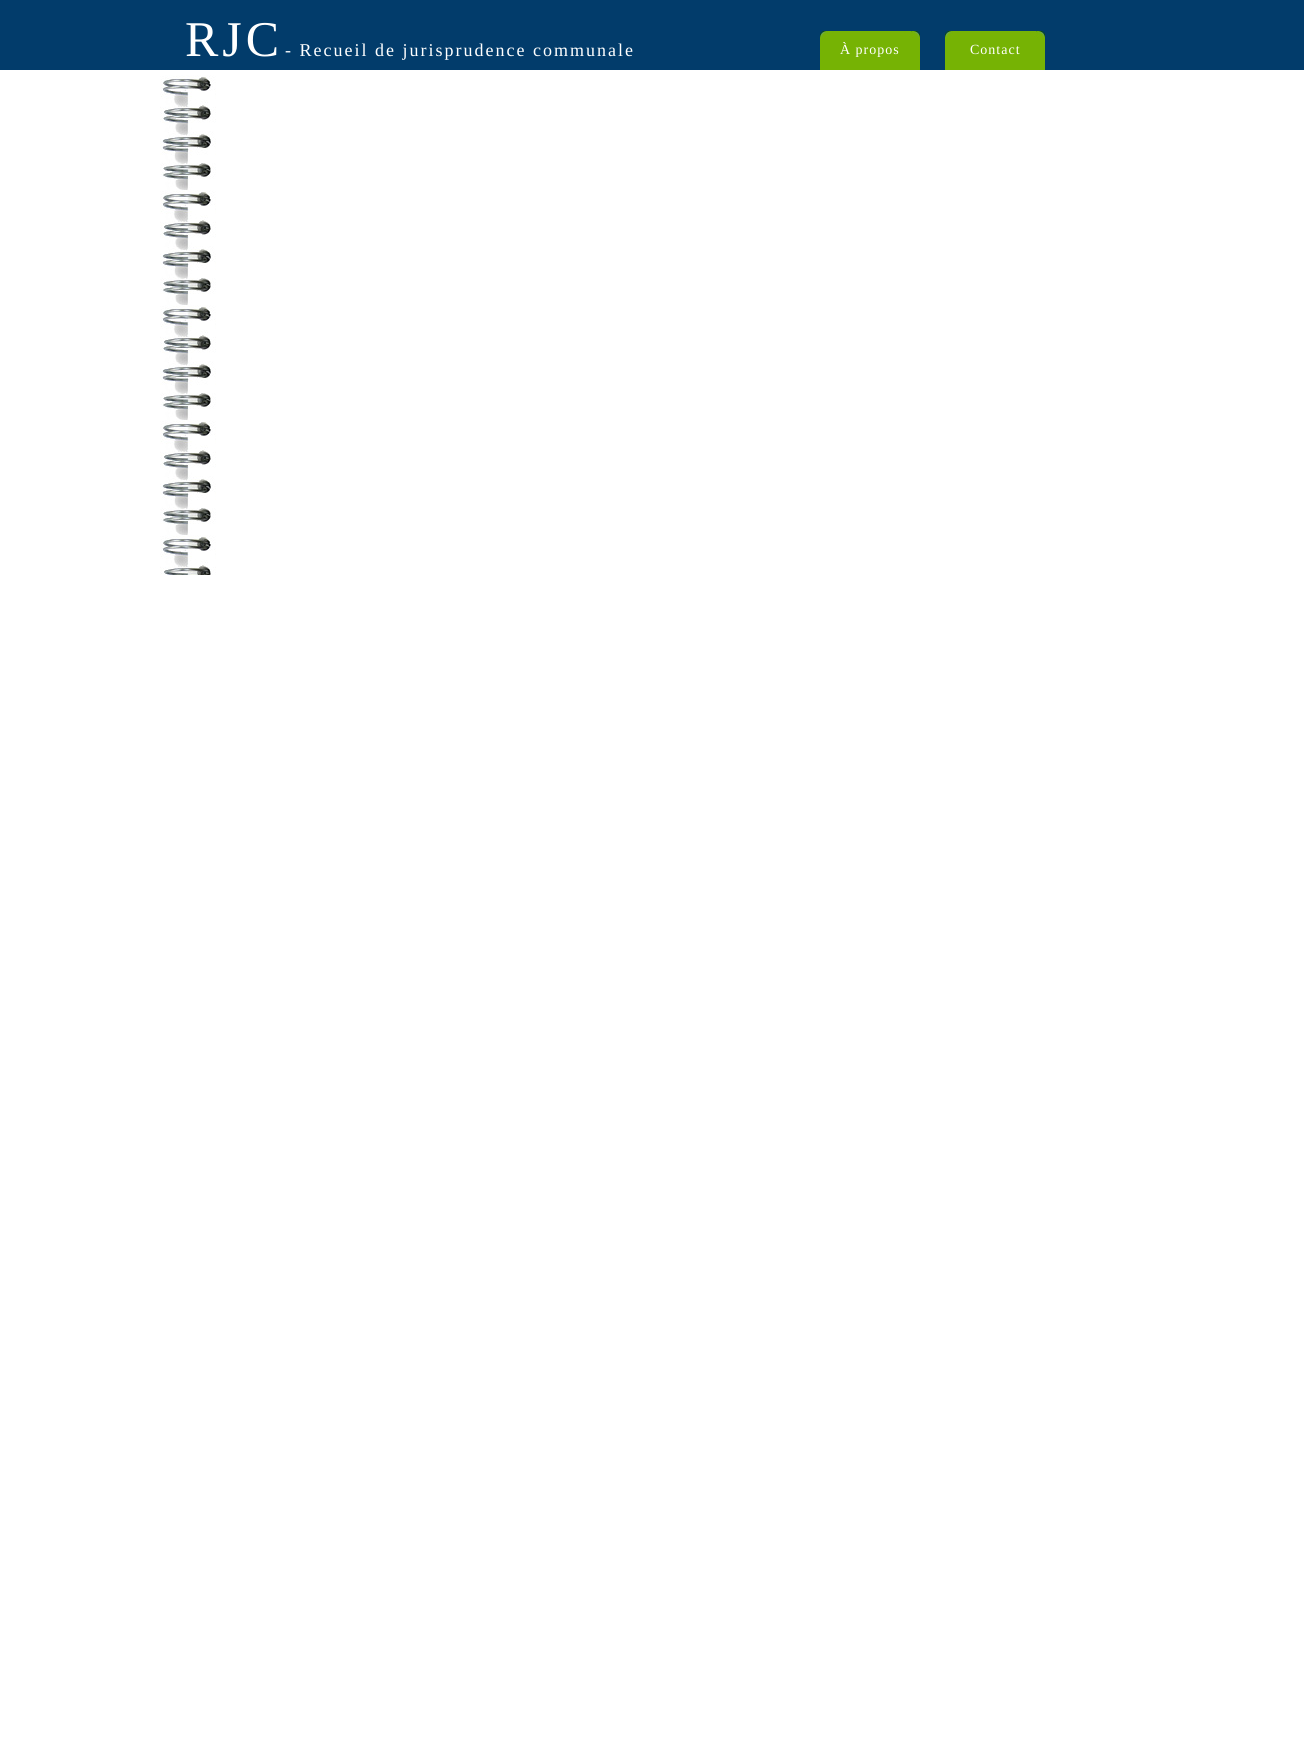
import math
import cairo

surface = cairo.ImageSurface(cairo.Format.RGB24, 1304, 1742)
ctx = cairo.Context(surface)
options = cairo.FontOptions()
options.set_hint_metrics(cairo.HintMetrics.OFF)
options.set_hint_style(cairo.HintStyle.NONE)
ctx.set_font_options(options)
ctx.set_miter_limit(4)


def ink(r, g, b):
    ctx.set_source_rgb(r / 255, g / 255, b / 255)


def write_spaced(x, y, s, letter, word):
    ctx.move_to(x, y)
    for ch in s:
        ctx.show_text(ch)
        ctx.rel_move_to(letter + word * (ch == ' '), 0)


def block(x, y, w, h, *color):
    ink(*color)
    ctx.rectangle(x, y, w, h)
    ctx.fill()


def paste(path, x, y, w, h):
    ctx.save()
    ctx.set_source_surface(cairo.ImageSurface.create_from_png(path), x, y)
    ctx.rectangle(x, y, w, h)
    ctx.fill()
    ctx.restore()


ink(255, 255, 255)
ctx.paint()
block(0, 0, 1304, 70, 2, 60, 107)
ctx.select_font_face("Liberation Serif")
ctx.set_font_size(50)
ink(255, 255, 255)
write_spaced(185, 56, "RJC", 4, 0)
ctx.set_font_size(18)
write_spaced(285, 56, "- Recueil de jurisprudence communale", 2, 0)
block(820, 38, 100, 32, 118, 179, 4)
paste("pic1.png", 820, 31, 100, 7)
ctx.set_font_size(14)
ink(255, 255, 255)
write_spaced(840, 54, "À propos", 1, 0)
block(945, 38, 100, 32, 118, 179, 4)
paste("pic1.png", 945, 31, 100, 7)
ink(255, 255, 255)
write_spaced(970, 54, "Contact", 1, 0)
paste("pic2.png", 160, 75, 56, 500)
surface.write_to_png("screenshot.png")
